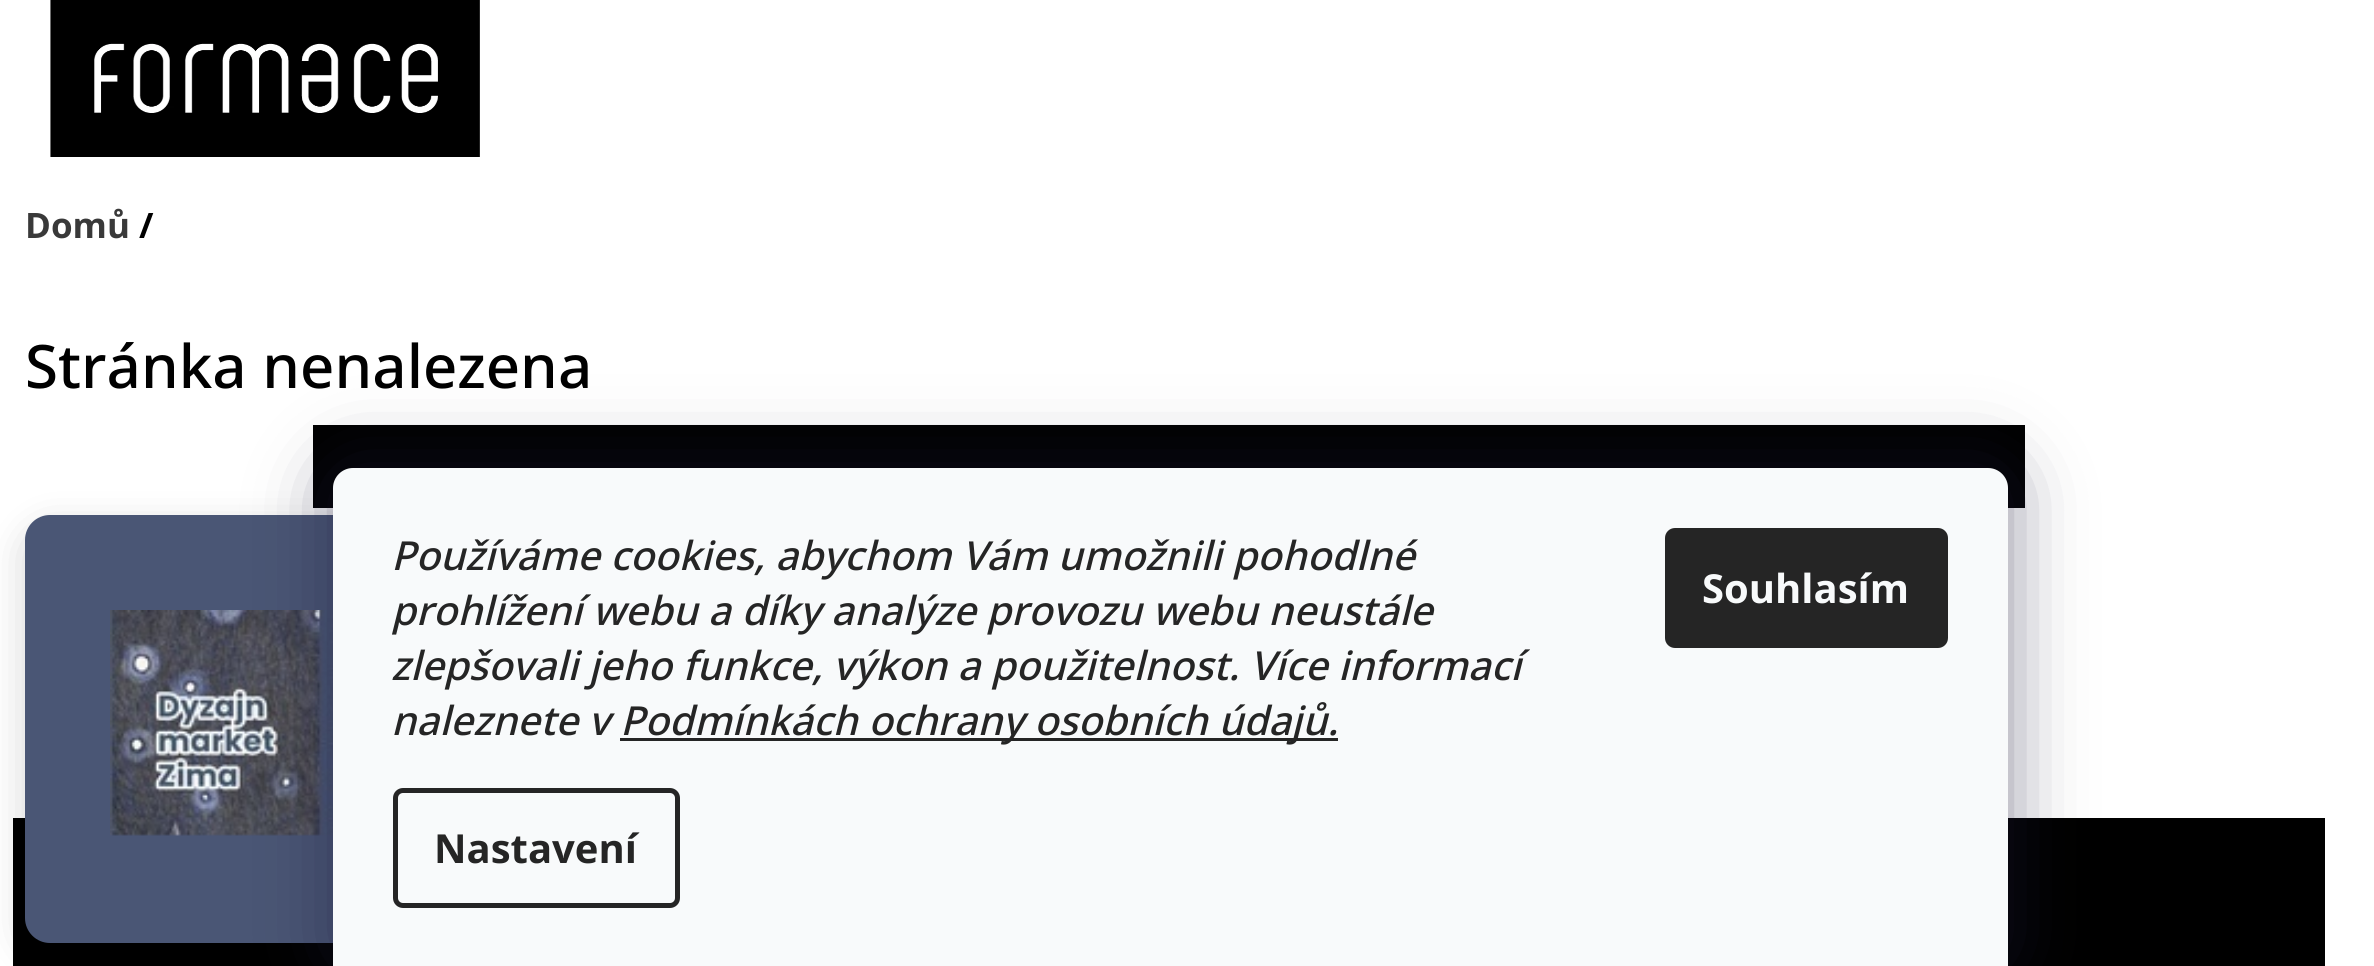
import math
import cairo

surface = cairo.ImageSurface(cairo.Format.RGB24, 2374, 966)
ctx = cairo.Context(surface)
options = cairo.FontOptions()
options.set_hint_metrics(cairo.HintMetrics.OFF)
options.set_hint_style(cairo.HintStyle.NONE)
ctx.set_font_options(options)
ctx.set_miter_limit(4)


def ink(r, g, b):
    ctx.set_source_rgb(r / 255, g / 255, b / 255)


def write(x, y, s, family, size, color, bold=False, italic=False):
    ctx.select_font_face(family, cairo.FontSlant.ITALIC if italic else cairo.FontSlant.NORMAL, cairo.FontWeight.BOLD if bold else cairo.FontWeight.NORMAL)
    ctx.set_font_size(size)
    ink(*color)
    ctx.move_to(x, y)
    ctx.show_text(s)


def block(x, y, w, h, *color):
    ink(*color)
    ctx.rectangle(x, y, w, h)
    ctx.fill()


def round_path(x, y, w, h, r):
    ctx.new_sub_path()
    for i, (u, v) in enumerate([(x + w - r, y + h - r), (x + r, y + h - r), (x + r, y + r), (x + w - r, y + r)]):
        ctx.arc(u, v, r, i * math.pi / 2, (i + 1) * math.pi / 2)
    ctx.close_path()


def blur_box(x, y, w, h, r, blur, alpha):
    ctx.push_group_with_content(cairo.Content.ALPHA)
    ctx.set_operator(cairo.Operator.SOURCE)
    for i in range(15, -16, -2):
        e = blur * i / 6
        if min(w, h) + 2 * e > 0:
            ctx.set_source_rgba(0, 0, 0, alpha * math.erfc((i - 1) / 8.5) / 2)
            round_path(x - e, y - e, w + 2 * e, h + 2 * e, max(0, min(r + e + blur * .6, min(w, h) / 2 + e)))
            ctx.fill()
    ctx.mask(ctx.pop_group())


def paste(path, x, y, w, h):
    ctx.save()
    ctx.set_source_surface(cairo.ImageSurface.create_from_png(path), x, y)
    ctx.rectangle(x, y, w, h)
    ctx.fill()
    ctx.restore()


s1 = dict(family="Noto Sans", size=35, color=(57, 57, 57), bold=True)
s2 = dict(family="Noto Sans", size=35, color=(0, 0, 0), bold=True)
s3 = dict(family="Noto Sans Medium", size=60, color=(0, 0, 0))
s4 = dict(family="Noto Sans Medium", size=40, color=(37, 37, 37), italic=True)
s5 = dict(family="Noto Sans", size=40, color=(37, 37, 37), bold=True)
s6 = dict(family="Noto Sans", size=40, color=(248, 250, 251), bold=True)

ink(255, 255, 255)
ctx.paint()
paste("pic1.png", 50, 0, 430, 157)
write(25, 238, "Domů", **s1)
write(139, 238, "/", **s2)
write(25, 388, "Stránka nenalezena", **s3)
block(313, 425, 1712, 83, 0, 0, 0)
block(13, 818, 320, 148, 0, 0, 0)
ink(0, 0, 0)
blur_box(25, 528, 1200, 427, 25, 20, 0.16)
ink(74, 86, 117)
round_path(25, 515, 1200, 428, 25)
ctx.fill()
paste("pic2.png", 110, 610, 223, 226)
block(2008, 818, 317, 148, 0, 0, 0)
ink(27, 25, 57)
blur_box(333, 468, 1675, 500, 20, 37.5, 0.5)
ink(248, 250, 251)
ctx.new_path()
ctx.move_to(353, 468)
ctx.line_to(1988, 468)
ctx.curve_to(1999, 468, 2008, 477, 2008, 488)
ctx.line_to(2008, 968)
ctx.line_to(333, 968)
ctx.line_to(333, 488)
ctx.curve_to(333, 477, 342, 468, 353, 468)
ctx.close_path()
ctx.fill()
write(391, 570, "Používáme cookies, abychom Vám umožnili pohodlné", **s4)
write(391, 625, "prohlížení webu a díky analýze provozu webu neustále", **s4)
write(391, 680, "zlepšovali jeho funkce, výkon a použitelnost. Více informací", **s4)
write(391, 735, "naleznete v", **s4)
block(620, 738, 718, 3, 37, 37, 37)
write(620, 735, "Podmínkách ochrany osobních údajů.", **s4)
round_path(395.5, 790.5, 282, 115, 7.5)
ctx.set_line_width(5)
ctx.stroke()
write(434, 863, "Nastavení", **s5)
round_path(1665, 528, 283, 120, 10)
ctx.fill()
write(1702, 603, "Souhlasím", **s6)
surface.write_to_png("screenshot.png")
